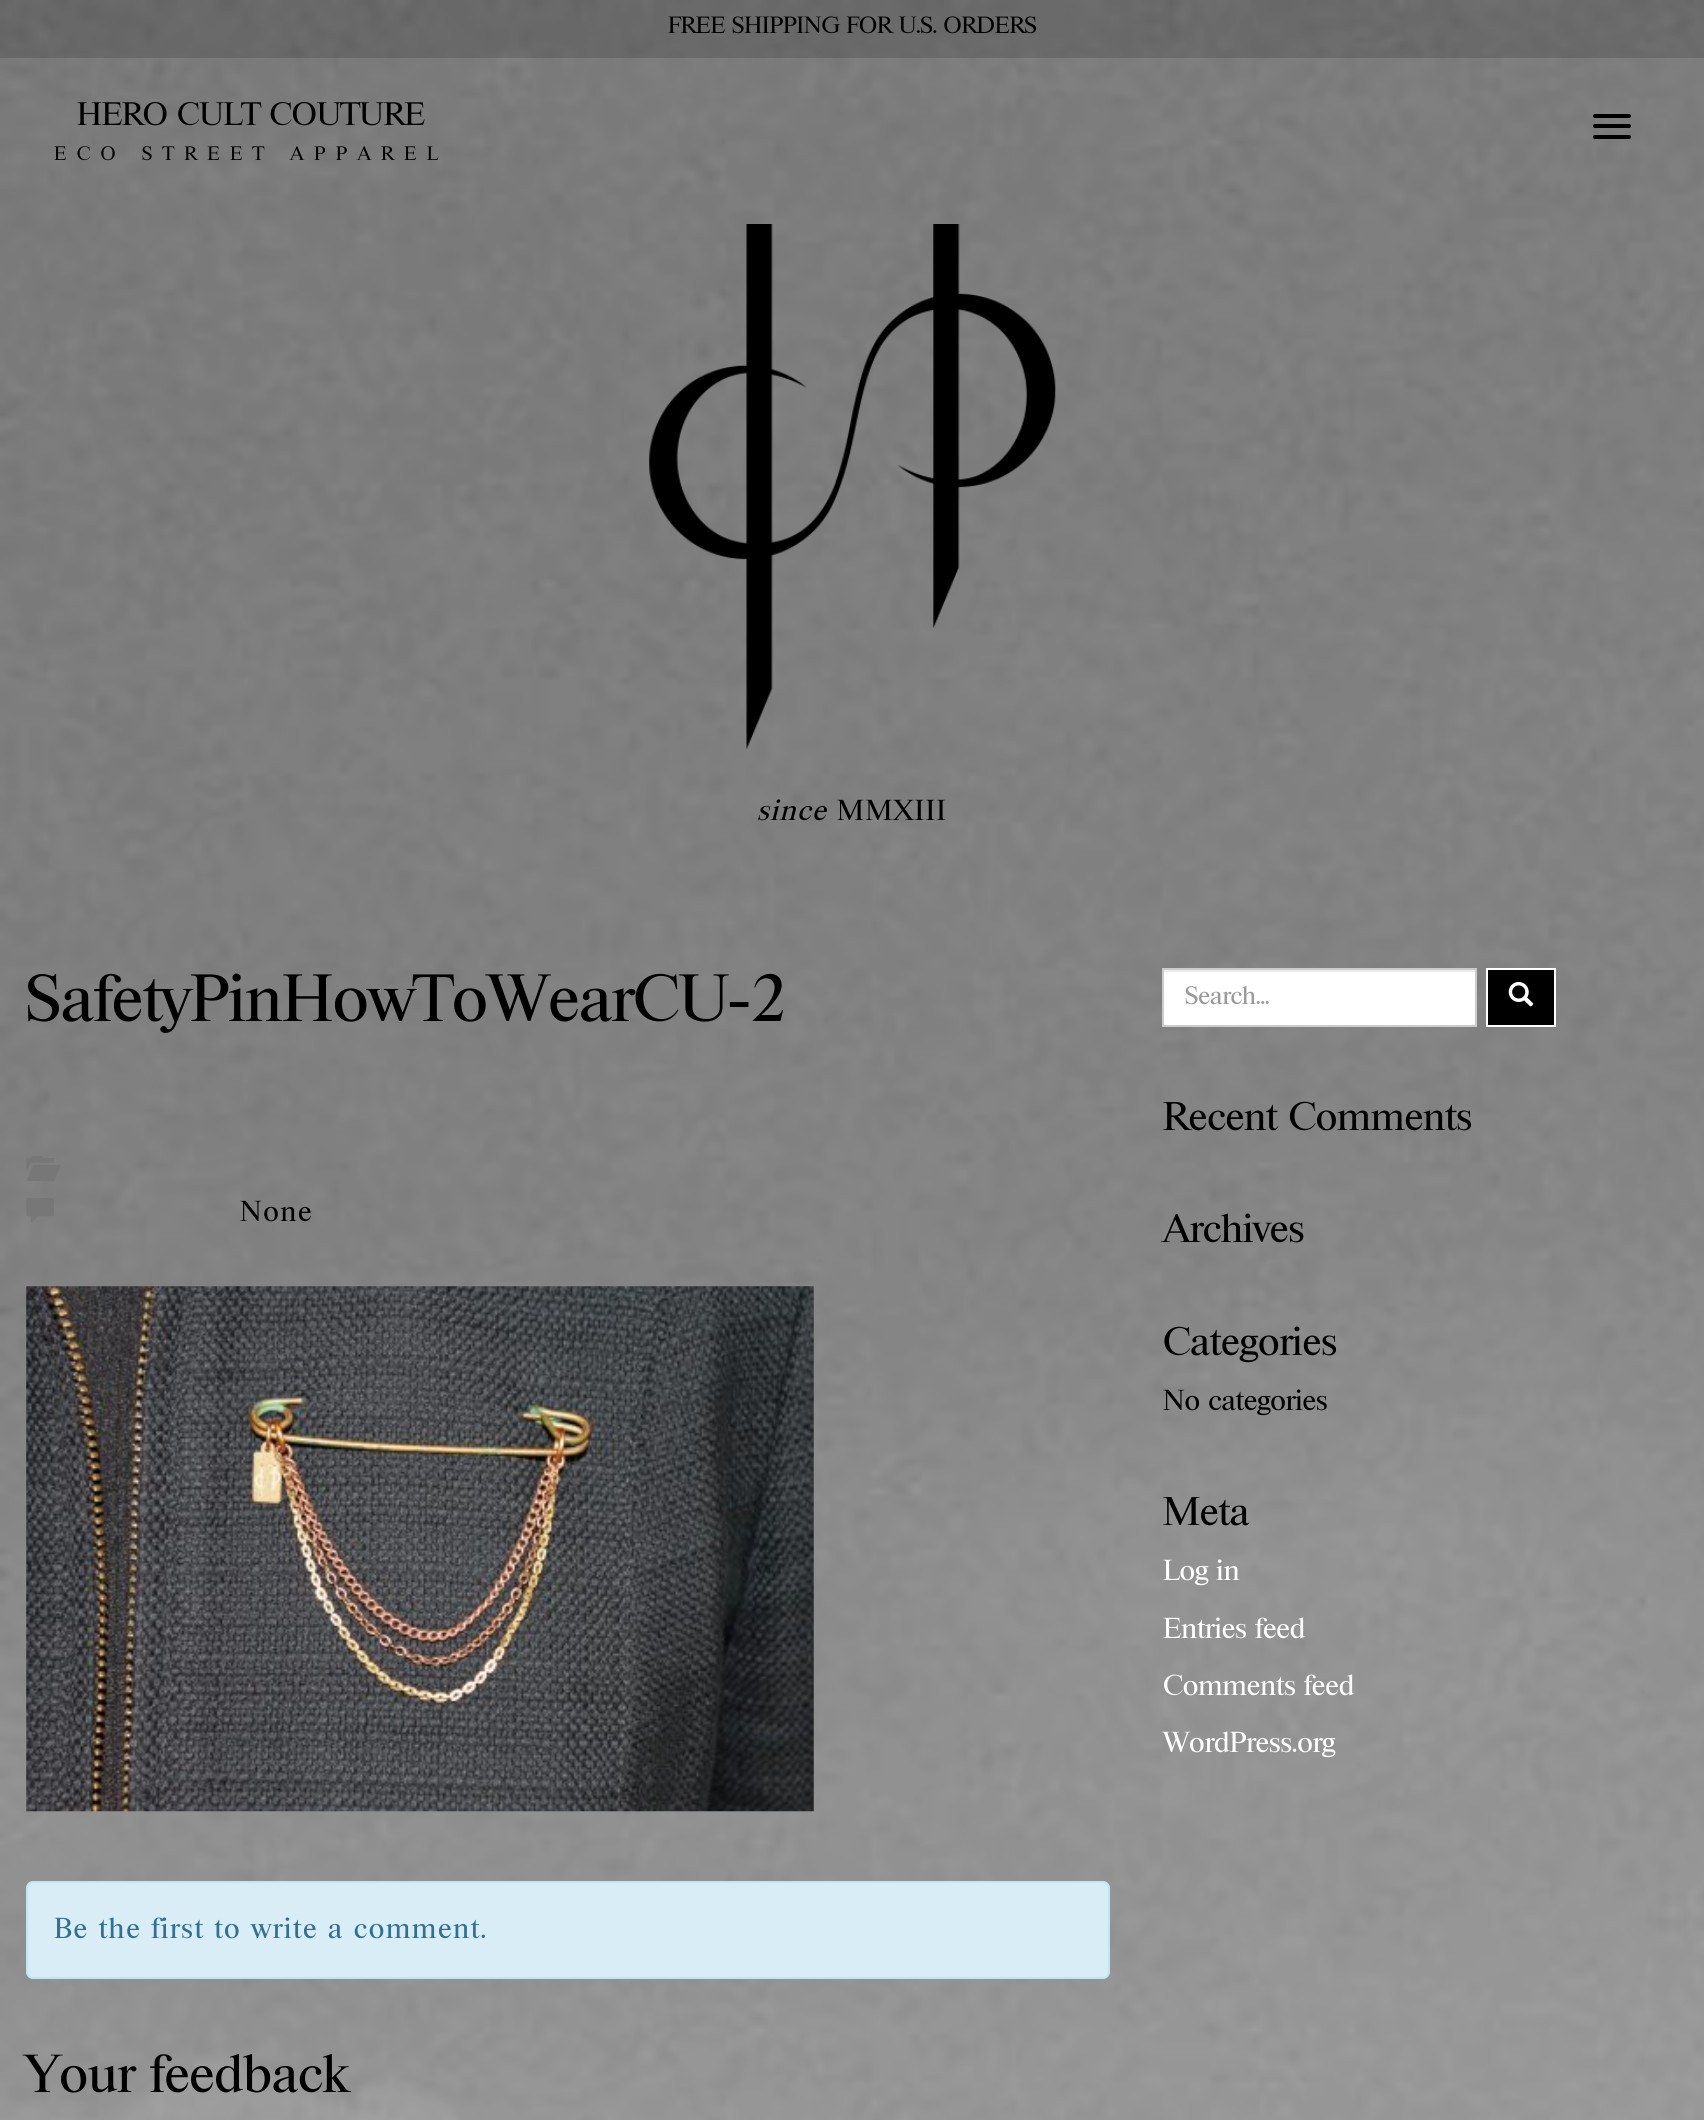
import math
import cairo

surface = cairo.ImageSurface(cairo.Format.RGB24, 1704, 2120)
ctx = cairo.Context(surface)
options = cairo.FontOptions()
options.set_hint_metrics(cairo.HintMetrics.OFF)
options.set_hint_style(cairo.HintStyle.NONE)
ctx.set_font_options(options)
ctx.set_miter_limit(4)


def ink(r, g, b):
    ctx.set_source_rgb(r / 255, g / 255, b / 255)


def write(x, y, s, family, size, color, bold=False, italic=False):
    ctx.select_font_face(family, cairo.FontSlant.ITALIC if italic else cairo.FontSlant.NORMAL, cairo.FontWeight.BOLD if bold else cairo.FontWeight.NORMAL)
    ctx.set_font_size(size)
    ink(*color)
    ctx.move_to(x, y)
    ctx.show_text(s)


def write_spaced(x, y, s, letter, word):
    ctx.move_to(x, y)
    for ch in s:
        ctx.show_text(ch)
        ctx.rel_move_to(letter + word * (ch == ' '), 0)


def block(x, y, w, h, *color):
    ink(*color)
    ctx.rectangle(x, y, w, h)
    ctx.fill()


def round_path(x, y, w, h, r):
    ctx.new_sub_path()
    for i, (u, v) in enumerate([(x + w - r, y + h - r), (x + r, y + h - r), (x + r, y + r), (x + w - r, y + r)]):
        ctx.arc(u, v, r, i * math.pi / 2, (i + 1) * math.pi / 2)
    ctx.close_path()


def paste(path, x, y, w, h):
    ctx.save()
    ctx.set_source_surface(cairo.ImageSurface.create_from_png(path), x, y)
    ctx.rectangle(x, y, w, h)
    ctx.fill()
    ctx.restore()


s1 = dict(family="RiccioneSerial", size=22.75, color=(0, 0, 0))
s2 = dict(family="RiccioneSerial", size=31.5, color=(0, 0, 0))
s3 = dict(family="RiccioneSerial", size=64.6, color=(0, 0, 0))
s4 = dict(family="RiccioneSerial", size=51.75, color=(0, 0, 0))
s5 = dict(family="RiccioneSerial", size=24.5, color=(153, 153, 153))
s6 = dict(family="RiccioneSerial", size=38.75, color=(0, 0, 0))
s7 = dict(family="RiccioneSerial", size=28, color=(0, 0, 0))
s8 = dict(family="RiccioneSerial", size=28, color=(255, 255, 255))

ink(255, 255, 255)
ctx.paint()
paste("pic1.png", 0, 0, 1704, 2120)
ctx.set_source_rgba(0, 0, 0, 0.15)
ctx.rectangle(0, 0, 1704, 58)
ctx.fill()
write(668, 33, "FREE SHIPPING FOR U.S. ORDERS", **s1)
write(77, 125, "HERO CULT COUTURE", **s2)
ctx.set_font_size(18.9)
write_spaced(54, 160, "ECO STREET APPAREL", 10.5, 0)
round_path(1593, 114, 38, 4, 2)
ctx.fill()
round_path(1593, 124, 38, 4, 2)
ctx.fill()
round_path(1593, 135, 38, 4, 2)
ctx.fill()
paste("pic2.png", 649, 224, 407, 525)
ctx.select_font_face("RiccioneSerial", cairo.FontSlant.ITALIC)
ctx.set_font_size(28)
write_spaced(757, 820, "since", 1.75, 0)
ctx.select_font_face("RiccioneSerial")
write_spaced(837, 820, "MMXIII", 1.75, 0)
write(26, 1021, "SafetyPinHowToWearCU-2", **s3)
paste("pic3.png", 26, 1156, 35, 25)
paste("pic4.png", 26, 1198, 28, 25)
ctx.set_font_size(28)
write_spaced(240, 1221, "None", 1.75, 0)
paste("pic5.png", 26, 1286, 788, 526)
ink(217, 237, 247)
round_path(27, 1882, 1082, 96, 6)
ctx.fill_preserve()
ink(188, 232, 241)
ctx.stroke()
ink(49, 112, 143)
write_spaced(54, 1938, "Be the first to write a comment.", 1.75, 0)
write(26, 2092, "Your feedback", **s4)
block(1164, 972, 311, 53, 255, 255, 255)
block(1164, 970, 311, 2, 236, 236, 236)
ctx.rectangle(1163, 969, 313, 57)
ink(204, 204, 204)
ctx.stroke()
write(1185, 1004, "Search...", **s5)
ink(0, 0, 0)
ctx.rectangle(1487, 969, 68, 57)
ctx.fill_preserve()
ink(255, 255, 255)
ctx.stroke()
paste("pic6.png", 1508, 981, 26, 26)
write(1163, 1130, "Recent Comments", **s6)
write(1163, 1242, "Archives", **s6)
write(1163, 1355, "Categories", **s6)
write(1163, 1410, "No categories", **s7)
write(1163, 1525, "Meta", **s6)
write(1163, 1580, "Log in", **s8)
write(1163, 1638, "Entries feed", **s8)
write(1163, 1695, "Comments feed", **s8)
write(1163, 1752, "WordPress.org", **s8)
surface.write_to_png("screenshot.png")
